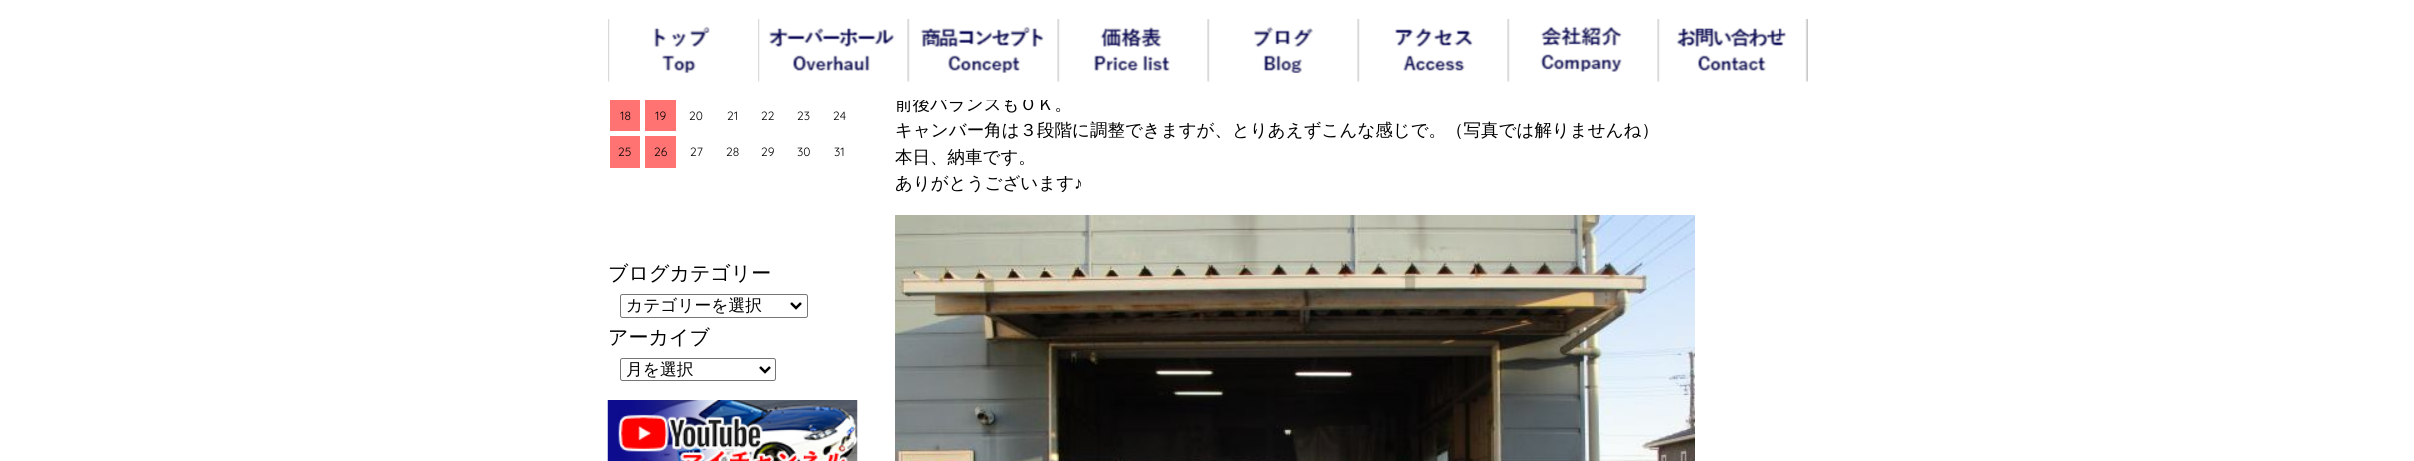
import math
import cairo

surface = cairo.ImageSurface(cairo.Format.RGB24, 2414, 461)
ctx = cairo.Context(surface)
options = cairo.FontOptions()
options.set_hint_metrics(cairo.HintMetrics.OFF)
options.set_hint_style(cairo.HintStyle.NONE)
ctx.set_font_options(options)
ctx.set_miter_limit(4)


def ink(r, g, b):
    ctx.set_source_rgb(r / 255, g / 255, b / 255)


def write(x, y, s, family, size, color, bold=False, italic=False):
    ctx.select_font_face(family, cairo.FontSlant.ITALIC if italic else cairo.FontSlant.NORMAL, cairo.FontWeight.BOLD if bold else cairo.FontWeight.NORMAL)
    ctx.set_font_size(size)
    ink(*color)
    ctx.move_to(x, y)
    ctx.show_text(s)


def block(x, y, w, h, *color):
    ink(*color)
    ctx.rectangle(x, y, w, h)
    ctx.fill()


def round_path(x, y, w, h, r):
    ctx.new_sub_path()
    for i, (u, v) in enumerate([(x + w - r, y + h - r), (x + r, y + h - r), (x + r, y + r), (x + w - r, y + r)]):
        ctx.arc(u, v, r, i * math.pi / 2, (i + 1) * math.pi / 2)
    ctx.close_path()


def paste(path, x, y, w, h):
    ctx.save()
    ctx.set_source_surface(cairo.ImageSurface.create_from_png(path), x, y)
    ctx.rectangle(x, y, w, h)
    ctx.fill()
    ctx.restore()


s1 = dict(family="WenQuanYi Zen Hei Medium", size=17.5, color=(0, 0, 0))
s2 = dict(family="Quicksand", size=12, color=(0, 0, 0))
s3 = dict(family="WenQuanYi Zen Hei Medium", size=20, color=(0, 0, 0))
s4 = dict(family="WenQuanYi Zen Hei Medium", size=16.75, color=(0, 0, 0))
s5 = dict(family="Liberation Sans", size=17.5, color=(0, 0, 0))

ink(255, 255, 255)
ctx.paint()
write(895, 110, "前後バランスもＯＫ。", **s1)
block(895, 95, 155, 5, 255, 255, 255)
paste("pic1.png", 608, 19, 102, 63)
paste("pic2.png", 758, 19, 137, 63)
paste("pic3.png", 907, 19, 137, 63)
paste("pic4.png", 1057, 19, 113, 63)
paste("pic5.png", 1207, 19, 107, 63)
paste("pic6.png", 1357, 19, 116, 63)
paste("pic7.png", 1507, 19, 115, 63)
paste("pic8.png", 1657, 19, 151, 63)
block(610, 100, 30, 31, 255, 115, 115)
write(620, 120, "18", **s2)
block(645, 100, 31, 31, 255, 115, 115)
write(655, 120, "19", **s2)
write(689, 120, "20", **s2)
write(727, 120, "21", **s2)
write(761, 120, "22", **s2)
write(797, 120, "23", **s2)
write(833, 120, "24", **s2)
block(610, 136, 30, 32, 255, 115, 115)
write(618, 156, "25", **s2)
block(645, 136, 31, 32, 255, 115, 115)
write(654, 156, "26", **s2)
write(690, 156, "27", **s2)
write(726, 156, "28", **s2)
write(761, 156, "29", **s2)
write(797, 156, "30", **s2)
write(834, 156, "31", **s2)
write(608, 280, "ブログカテゴリー", **s3)
round_path(620.5, 294.5, 187, 23, 2)
ink(118, 118, 118)
ctx.set_line_width(1)
ctx.stroke()
ctx.new_path()
ctx.move_to(791, 303)
ctx.line_to(796, 308)
ctx.line_to(801, 303)
ink(0, 0, 0)
ctx.set_line_width(2.5)
ctx.stroke()
write(626, 311, "カテゴリーを選択", **s4)
write(608, 344, "アーカイブ", **s3)
round_path(620.5, 358.5, 155, 22, 2)
ink(118, 118, 118)
ctx.set_line_width(1)
ctx.stroke()
ctx.new_path()
ctx.move_to(760, 367)
ctx.line_to(765, 372)
ctx.line_to(770, 367)
ink(0, 0, 0)
ctx.set_line_width(2.5)
ctx.stroke()
write(626, 375, "月を選択", **s4)
paste("pic9.png", 607, 400, 251, 61)
write(895, 136, "キャンバー角は３段階に調整できますが、とりあえずこんな感じで。（写真では解りませんね）", **s1)
write(895, 163, "本日、納車です。", **s1)
write(895, 189, "ありがとうございます", **s1)
write(1074, 189, "♪", **s5)
paste("pic10.png", 895, 215, 800, 246)
surface.write_to_png("screenshot.png")
